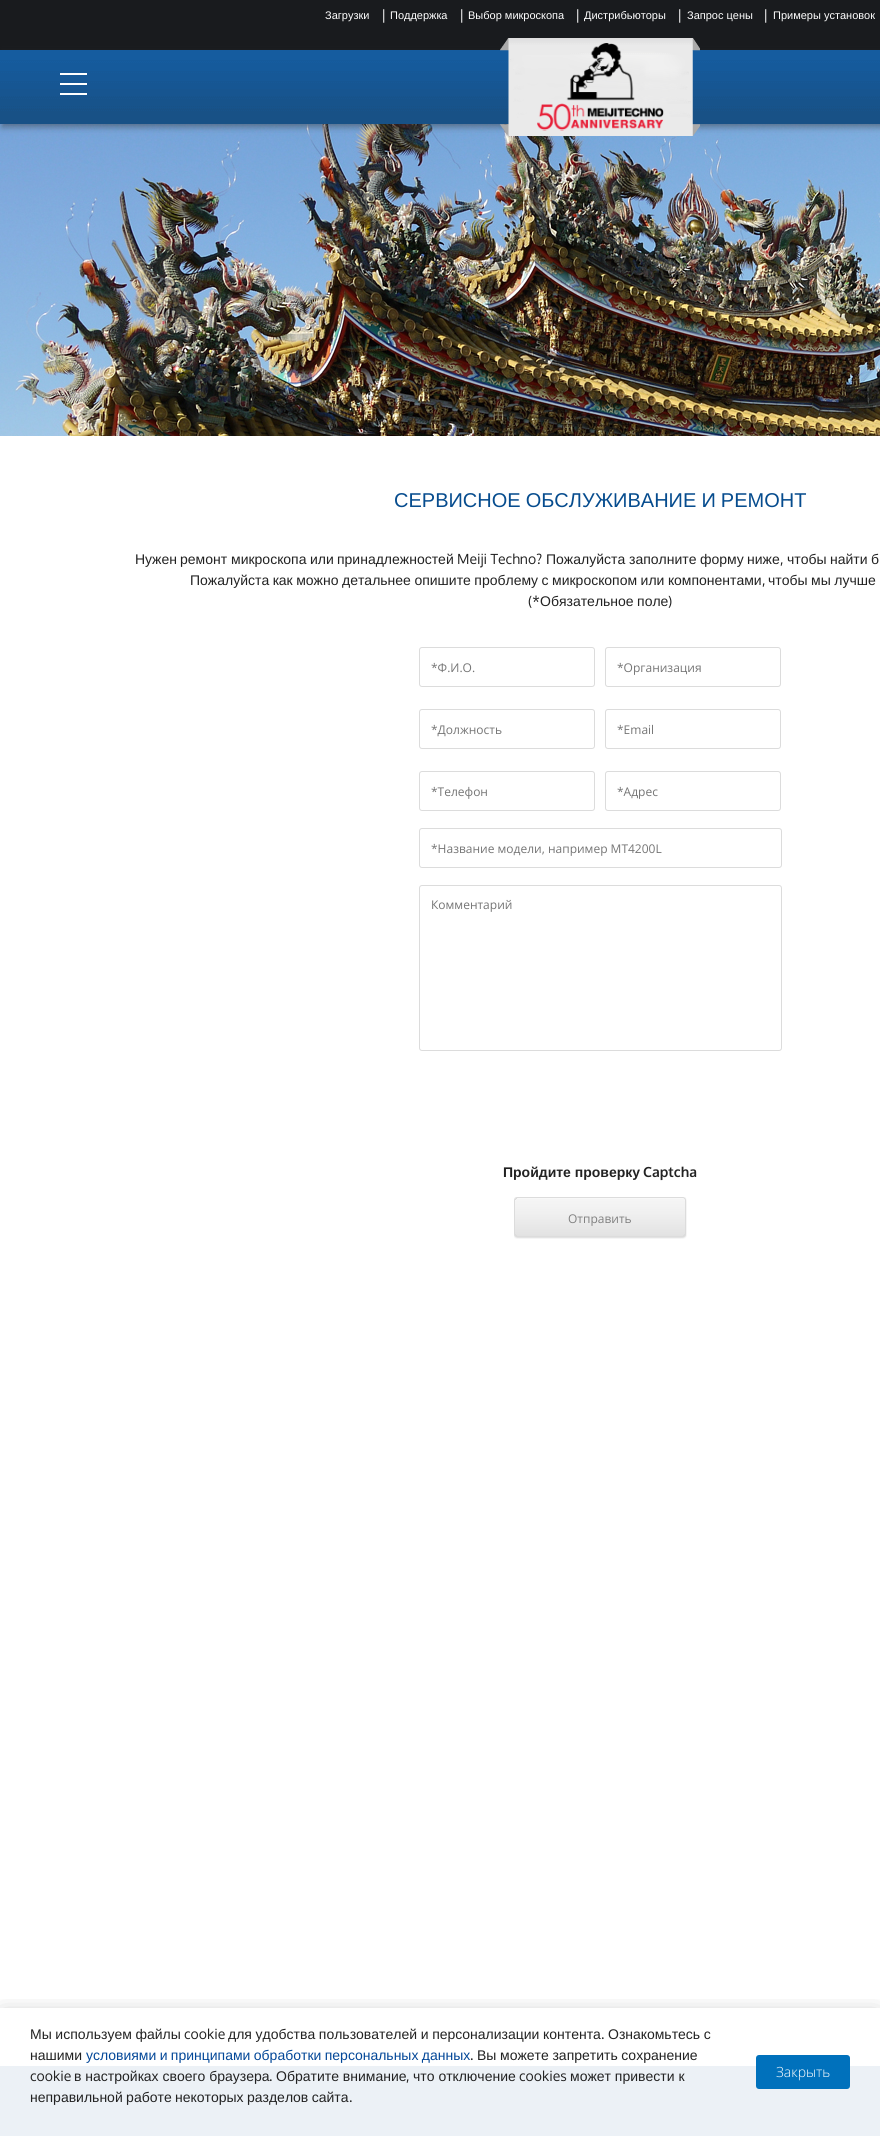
import math
import cairo

surface = cairo.ImageSurface(cairo.Format.RGB24, 880, 2136)
ctx = cairo.Context(surface)
options = cairo.FontOptions()
options.set_hint_metrics(cairo.HintMetrics.OFF)
options.set_hint_style(cairo.HintStyle.NONE)
ctx.set_font_options(options)
ctx.set_miter_limit(4)


def ink(r, g, b):
    ctx.set_source_rgb(r / 255, g / 255, b / 255)


def write(x, y, s, family, size, color, bold=False, italic=False):
    ctx.select_font_face(family, cairo.FontSlant.ITALIC if italic else cairo.FontSlant.NORMAL, cairo.FontWeight.BOLD if bold else cairo.FontWeight.NORMAL)
    ctx.set_font_size(size)
    ink(*color)
    ctx.move_to(x, y)
    ctx.show_text(s)


def write_spaced(x, y, s, letter, word):
    ctx.move_to(x, y)
    for ch in s:
        ctx.show_text(ch)
        ctx.rel_move_to(letter + word * (ch == ' '), 0)


def block(x, y, w, h, *color):
    ink(*color)
    ctx.rectangle(x, y, w, h)
    ctx.fill()


def round_path(x, y, w, h, r):
    ctx.new_sub_path()
    for i, (u, v) in enumerate([(x + w - r, y + h - r), (x + r, y + h - r), (x + r, y + r), (x + w - r, y + r)]):
        ctx.arc(u, v, r, i * math.pi / 2, (i + 1) * math.pi / 2)
    ctx.close_path()


def blur_box(x, y, w, h, r, blur, alpha):
    ctx.push_group_with_content(cairo.Content.ALPHA)
    ctx.set_operator(cairo.Operator.SOURCE)
    for i in range(15, -16, -2):
        e = blur * i / 6
        if min(w, h) + 2 * e > 0:
            ctx.set_source_rgba(0, 0, 0, alpha * math.erfc((i - 1) / 8.5) / 2)
            round_path(x - e, y - e, w + 2 * e, h + 2 * e, max(0, min(r + e + blur * .6, min(w, h) / 2 + e)))
            ctx.fill()
    ctx.mask(ctx.pop_group())


def paste(path, x, y, w, h):
    ctx.save()
    ctx.set_source_surface(cairo.ImageSurface.create_from_png(path), x, y)
    ctx.rectangle(x, y, w, h)
    ctx.fill()
    ctx.restore()


s1 = dict(family="Liberation Sans", size=11, color=(255, 255, 255))
s2 = dict(family="Oxygen", size=14, color=(255, 255, 255))
s3 = dict(family="Liberation Sans", size=14, color=(34, 34, 34))
s4 = dict(family="Oxygen", size=14, color=(34, 34, 34))
s5 = dict(family="Open Sans", size=12, color=(117, 117, 117))
s6 = dict(family="Liberation Sans", size=14, color=(34, 34, 34), bold=True)
s7 = dict(family="Oxygen", size=14, color=(34, 34, 34), bold=True)
s8 = dict(family="Open Sans", size=12, color=(128, 128, 128))
s9 = dict(family="Open Sans Light", size=14, color=(255, 255, 255))

ink(255, 255, 255)
ctx.paint()
block(0, 0, 880, 50, 25, 27, 30)
write(325, 19, "Загрузки", **s1)
write(381, 20, "|", **s2)
write(390, 19, "Поддержка", **s1)
write(459, 20, "|", **s2)
write(468, 19, "Выбор микроскопа", **s1)
write(575, 20, "|", **s2)
write(584, 19, "Дистрибьюторы", **s1)
write(677, 20, "|", **s2)
write(687, 19, "Запрос цены", **s1)
write(763, 20, "|", **s2)
write(773, 19, "Примеры установок", **s1)
paste("pic3.png", 0, 124, 880, 312)
ink(50, 50, 50)
blur_box(2, 53, 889, 74, 0, 3.5, 0.49)
paste("pic1.png", 0, 50, 880, 74)
block(60, 83, 27, 2, 255, 255, 255)
block(60, 73, 27, 2, 255, 255, 255)
block(60, 93, 27, 2, 255, 255, 255)
paste("pic2.png", 500, 38, 200, 98)
ctx.set_font_size(20)
ink(6, 76, 142)
write_spaced(394, 507, "СЕРВИСНОЕ ОБСЛУЖИВАНИЕ И РЕМОНТ", 0, -0.5)
write(135, 564, "Нужен", **s3)
write(180, 564, "ремонт", **s3)
write(231, 564, "микроскопа", **s3)
write(310, 564, "или", **s3)
write(337, 564, "принадлежностей", **s3)
write(457, 564, "Meiji Techno?", **s4)
write(546, 564, "Пожалуйста", **s3)
write(629, 564, "заполните", **s3)
write(700, 564, "форму", **s3)
write(747, 564, "ниже", **s3)
write(780, 564, ",", **s4)
write(787, 564, "чтобы", **s3)
write(830, 564, "найти", **s3)
write(871, 564, "б", **s3)
write_spaced(190, 585, "Пожалуйста как можно детальнее опишите проблему с микроскопом или компонентами", 0, -0.4)
write(762, 585, ",", **s4)
ctx.select_font_face("Liberation Sans")
write_spaced(768, 585, "чтобы мы лучше", 0, -0.4)
write(528, 606, "(*", **s4)
ctx.select_font_face("Liberation Sans")
write_spaced(540, 606, "Обязательное поле", 0, -0.5)
write(668, 606, ")", **s4)
round_path(419.5, 647.5, 175, 39, 2.5)
ink(220, 220, 220)
ctx.set_line_width(1)
ctx.stroke()
write(431, 672, "*Ф.И.О.", **s5)
round_path(605.5, 647.5, 175, 39, 2.5)
ink(220, 220, 220)
ctx.stroke()
write(617, 672, "*Организация", **s5)
round_path(419.5, 709.5, 175, 39, 2.5)
ink(220, 220, 220)
ctx.stroke()
write(431, 734, "*Должность", **s5)
round_path(605.5, 709.5, 175, 39, 2.5)
ink(220, 220, 220)
ctx.stroke()
write(617, 734, "*Email", **s5)
round_path(419.5, 771.5, 175, 39, 2.5)
ink(220, 220, 220)
ctx.stroke()
write(431, 796, "*Телефон", **s5)
round_path(605.5, 771.5, 175, 39, 2.5)
ink(220, 220, 220)
ctx.stroke()
write(617, 796, "*Адрес", **s5)
round_path(419.5, 828.5, 362, 39, 2.5)
ink(220, 220, 220)
ctx.stroke()
write(431, 853, "*Название модели, например MT4200L", **s5)
round_path(419.5, 885.5, 362, 165, 2.5)
ink(220, 220, 220)
ctx.stroke()
write(431, 909, "Комментарий", **s5)
write(503, 1177, "Пройдите проверку", **s6)
write(643, 1177, "Captcha", **s7)
paste("pic4.png", 514, 1197, 173, 42)
write(568, 1223, "Отправить", **s8)
block(0, 2066, 880, 70, 236, 241, 246)
ctx.save()
ctx.rectangle(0, 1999, 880, 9)
ctx.clip()
ink(0, 0, 0)
blur_box(3, 2016, 874, 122, 0, 11.5, 0.3)
ctx.restore()
ctx.select_font_face("Liberation Sans")
ctx.set_font_size(14)
ink(34, 34, 34)
write_spaced(30, 2039, "Мы используем файлы", 0, -0.25)
write(184, 2039, "cookie", **s4)
ctx.select_font_face("Liberation Sans")
write_spaced(228, 2039, "для удобства пользователей и персонализации контента", 0, -0.25)
write(601, 2039, ".", **s4)
ctx.select_font_face("Liberation Sans")
write_spaced(608, 2039, "Ознакомьтесь с", 0, -0.25)
write(30, 2060, "нашими", **s3)
ink(3, 71, 152)
write_spaced(86, 2060, "условиями и принципами обработки персональных данных", 0, -0.5)
write(470, 2060, ".", **s4)
ctx.select_font_face("Liberation Sans")
write_spaced(477, 2060, "Вы можете запретить сохранение", 0, -0.25)
write(30, 2081, "cookie", **s4)
write(74, 2081, "в настройках своего браузера", **s3)
write(269, 2081, ".", **s4)
write(276, 2081, "Обратите внимание", **s3)
write(406, 2081, ",", **s4)
write(413, 2081, "что отключение", **s3)
write(519, 2081, "cookies", **s4)
write(570, 2081, "может привести к", **s3)
write_spaced(30, 2102, "неправильной работе некоторых разделов сайта", 0, -0.5)
write(349, 2102, ".", **s4)
ink(0, 113, 188)
round_path(756, 2055, 94, 34, 3)
ctx.fill()
write(776, 2077, "Закрыть", **s9)
surface.write_to_png("screenshot.png")
